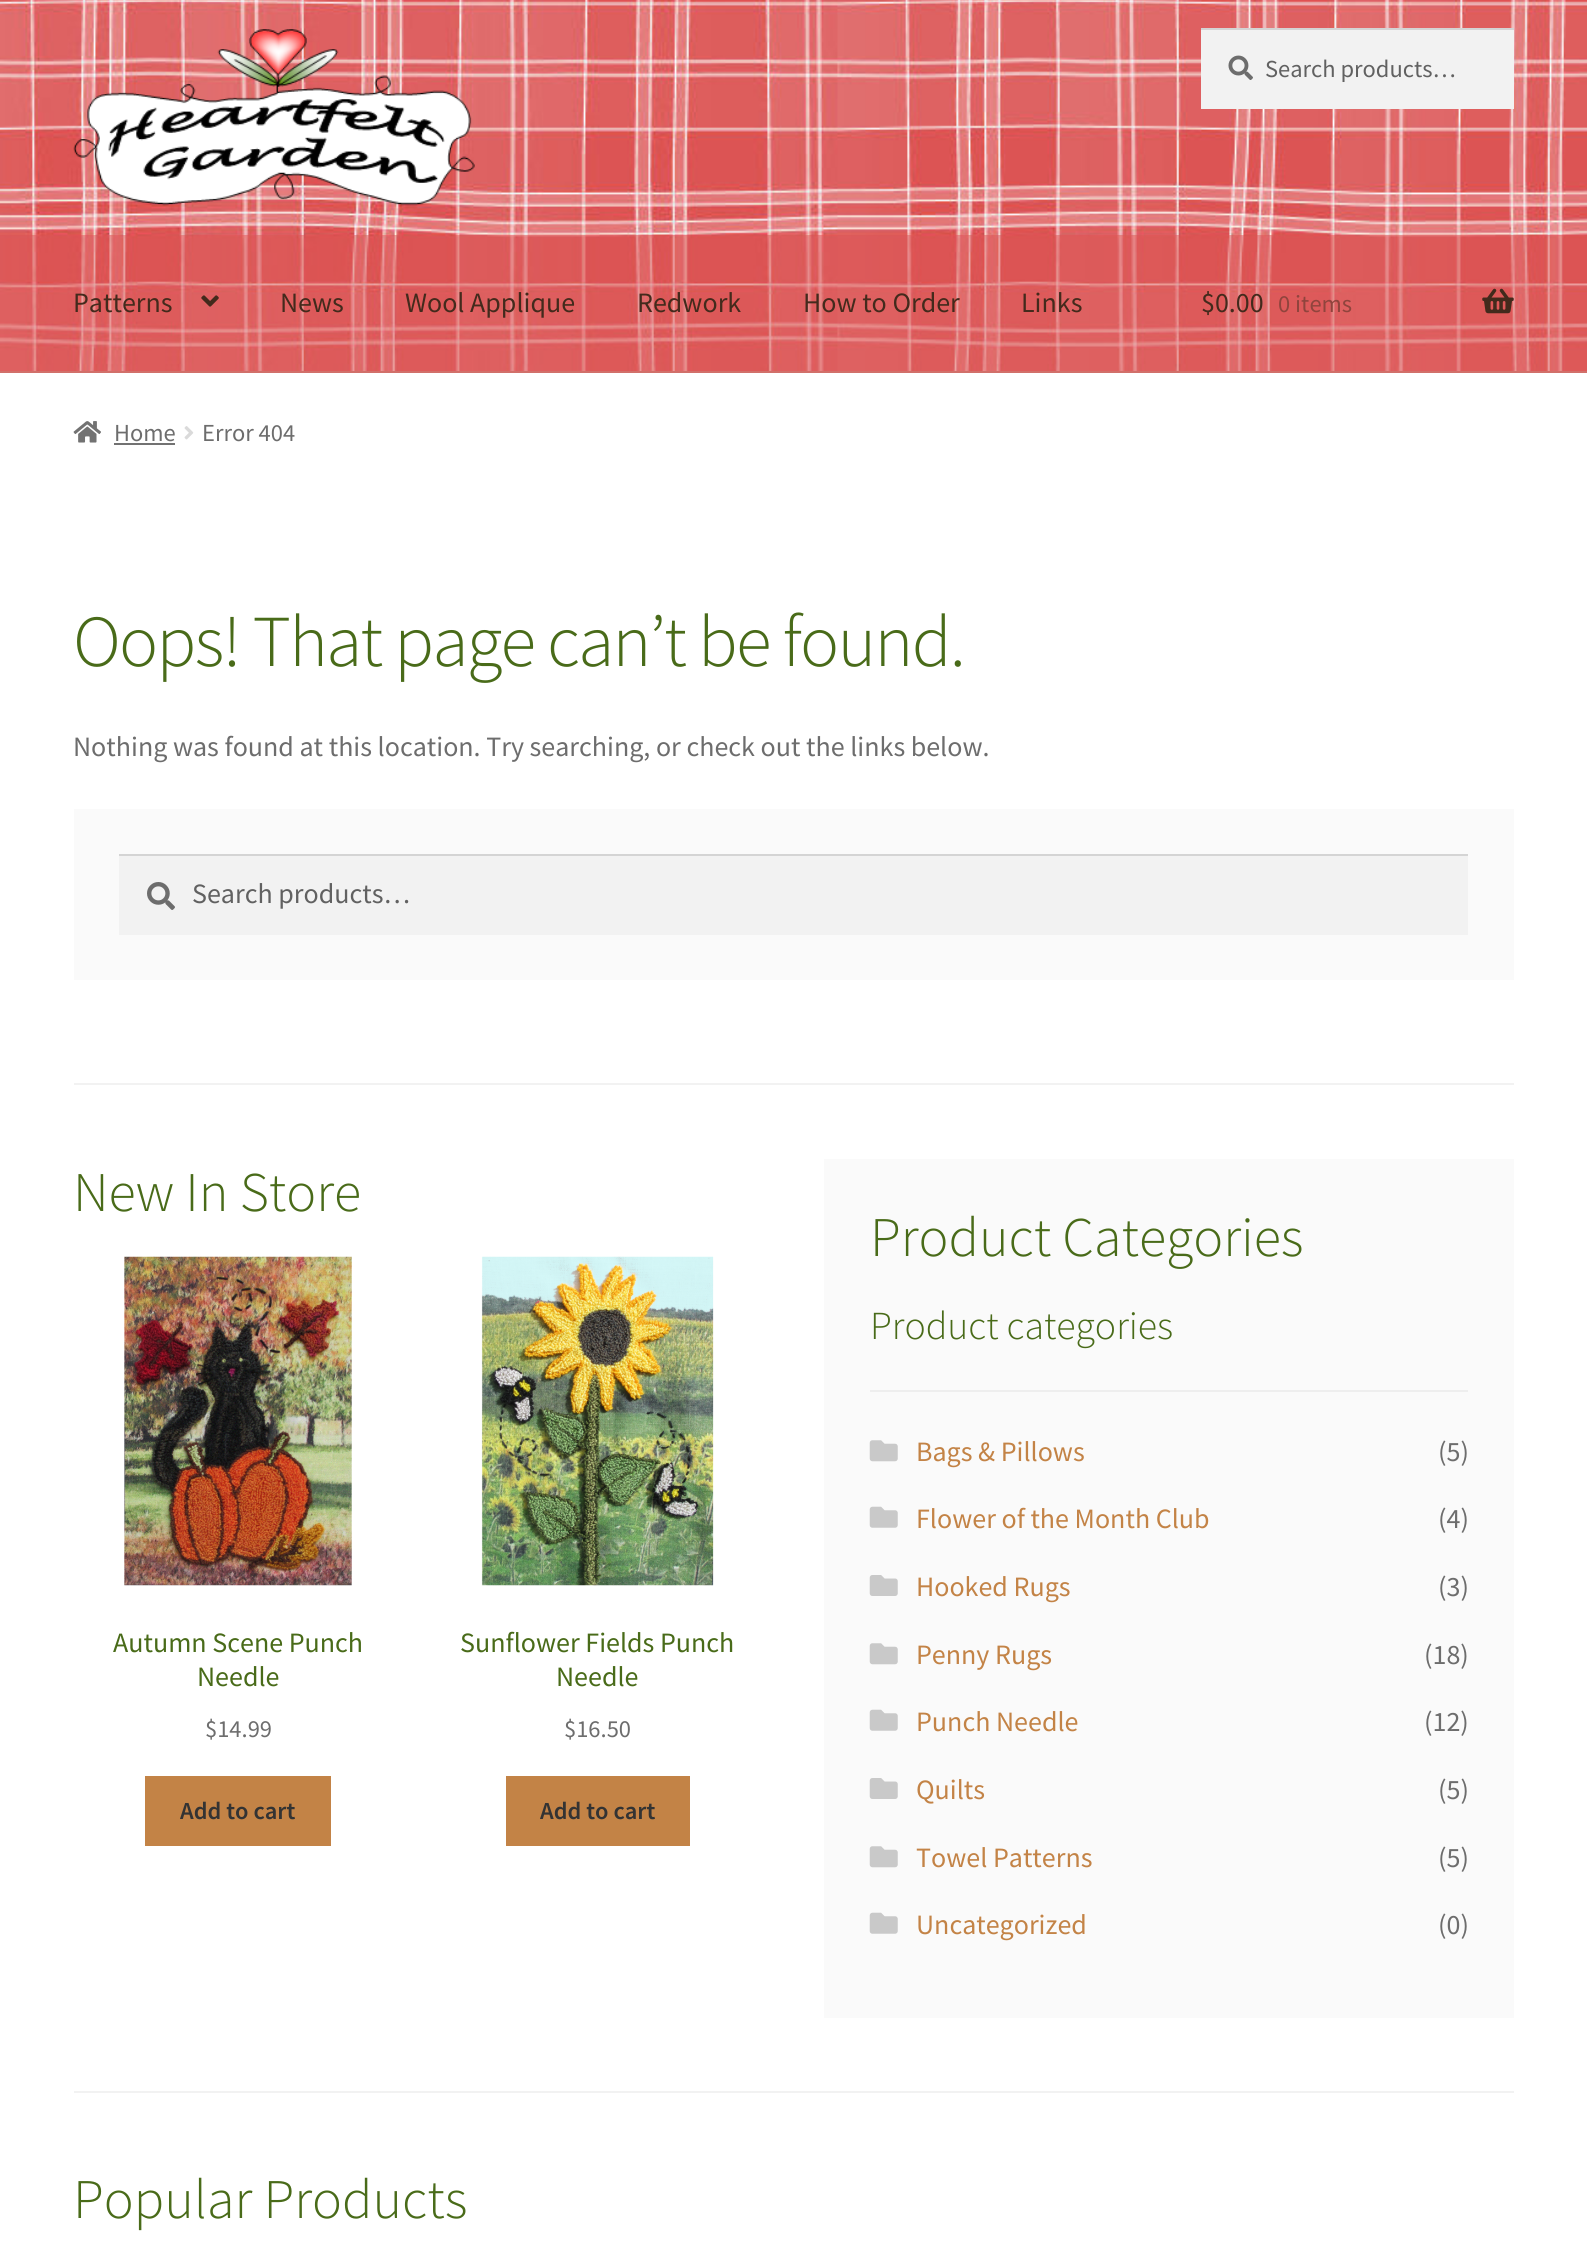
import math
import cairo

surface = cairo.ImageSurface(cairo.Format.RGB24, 1587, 2249)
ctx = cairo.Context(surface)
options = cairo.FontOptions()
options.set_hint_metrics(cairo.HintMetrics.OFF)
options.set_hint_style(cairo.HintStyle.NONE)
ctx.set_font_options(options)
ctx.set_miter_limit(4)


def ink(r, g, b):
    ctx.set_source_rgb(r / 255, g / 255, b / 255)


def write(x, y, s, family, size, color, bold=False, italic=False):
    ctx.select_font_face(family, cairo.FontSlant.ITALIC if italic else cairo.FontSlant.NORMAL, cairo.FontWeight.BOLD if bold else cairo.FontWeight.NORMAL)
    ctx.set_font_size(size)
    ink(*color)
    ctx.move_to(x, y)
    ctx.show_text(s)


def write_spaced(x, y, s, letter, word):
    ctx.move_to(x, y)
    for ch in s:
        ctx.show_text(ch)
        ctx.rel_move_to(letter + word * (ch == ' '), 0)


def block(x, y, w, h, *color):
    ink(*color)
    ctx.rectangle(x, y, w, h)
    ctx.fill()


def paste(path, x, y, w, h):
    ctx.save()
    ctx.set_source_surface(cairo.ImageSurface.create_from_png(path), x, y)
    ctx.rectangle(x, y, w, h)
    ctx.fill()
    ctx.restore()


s1 = dict(family="Source Sans Pro", size=24.5, color=(97, 97, 97))
s2 = dict(family="Source Sans Pro", size=28, color=(67, 42, 28))
s3 = dict(family="Source Sans Pro", size=24.5, color=(144, 68, 61))
s4 = dict(family="Source Sans Pro", size=24.5, color=(109, 109, 109))
s5 = dict(family="Source Sans Pro", size=28, color=(109, 109, 109))
s6 = dict(family="Source Sans Pro", size=28, color=(97, 97, 97))
s7 = dict(family="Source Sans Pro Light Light", size=56, color=(73, 107, 25))
s8 = dict(family="Source Sans Pro", size=28, color=(73, 107, 25))
s9 = dict(family="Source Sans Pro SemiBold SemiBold", size=24.5, color=(51, 51, 51))
s10 = dict(family="Source Sans Pro Light Light", size=39.75, color=(73, 107, 25))
s11 = dict(family="Source Sans Pro", size=28, color=(195, 131, 70))

ink(255, 255, 255)
ctx.paint()
paste("pic1.png", 0, 0, 1587, 371)
block(0, 371, 1587, 2, 209, 112, 106)
paste("pic2.png", 73, 29, 402, 177)
block(1201, 30, 313, 79, 242, 242, 242)
paste("pic3.png", 1228, 55, 25, 25)
block(1201, 28, 313, 2, 212, 212, 212)
write(1265, 77, "Search products…", **s1)
ctx.set_source_rgba(0.863, 0.329, 0.329, 0.5)
ctx.rectangle(0, 235, 1587, 136)
ctx.fill()
write(73, 312, "Patterns", **s2)
paste("pic4.png", 201, 295, 18, 12)
write(280, 312, "News", **s2)
write(405, 312, "Wool Applique", **s2)
write(637, 312, "Redwork", **s2)
write(803, 312, "How to Order", **s2)
write(1021, 312, "Links", **s2)
write(1201, 312, "$0.00", **s2)
write(1278, 312, "0 items", **s3)
paste("pic5.png", 1482, 288, 32, 26)
paste("pic6.png", 73, 421, 28, 22)
write(114, 441, "Home", **s4)
block(114, 443, 61, 2, 114, 114, 114)
paste("pic7.png", 184, 426, 10, 14)
write(202, 441, "Error 404", **s4)
ctx.select_font_face("Source Sans Pro Light Light")
ctx.set_font_size(73.25)
ink(73, 107, 25)
write_spaced(73, 666, "Oops! That page can’t be found.", -1.75, 0)
write(73, 756, "Nothing was found at this location. Try searching, or check out the links below.", **s5)
block(74, 809, 1440, 171, 250, 250, 250)
block(119, 856, 1349, 79, 242, 242, 242)
paste("pic8.png", 147, 882, 28, 28)
block(119, 854, 1349, 2, 212, 212, 212)
write(192, 903, "Search products…", **s6)
block(74, 1083, 1440, 2, 242, 242, 242)
block(74, 2091, 1440, 2, 242, 242, 242)
write(73, 1211, "New In Store", **s7)
paste("pic9.png", 124, 1256, 228, 330)
write(113, 1652, "Autumn Scene Punch", **s8)
write(197, 1686, "Needle", **s8)
write(205, 1737, "$14.99", **s4)
block(145, 1776, 186, 70, 195, 131, 70)
write(180, 1819, "Add to cart", **s9)
paste("pic10.png", 481, 1256, 233, 330)
write(460, 1652, "Sunflower Fields Punch", **s8)
write(556, 1686, "Needle", **s8)
write(564, 1737, "$16.50", **s4)
block(506, 1776, 184, 70, 195, 131, 70)
write(540, 1819, "Add to cart", **s9)
block(824, 1159, 690, 859, 250, 250, 250)
write(870, 1256, "Product Categories", **s7)
block(870, 1390, 598, 2, 238, 238, 238)
write(870, 1339, "Product categories", **s10)
paste("pic11.png", 869, 1440, 29, 22)
write(916, 1461, "Bags & Pillows", **s11)
write(1438, 1461, "(5)", **s5)
paste("pic12.png", 869, 1506, 29, 22)
write(916, 1528, "Flower of the Month Club", **s11)
write(1438, 1528, "(4)", **s5)
paste("pic13.png", 869, 1575, 29, 21)
write(916, 1596, "Hooked Rugs", **s11)
write(1438, 1596, "(3)", **s5)
paste("pic11.png", 869, 1643, 29, 22)
write(916, 1664, "Penny Rugs", **s11)
write(1424, 1664, "(18)", **s5)
paste("pic12.png", 869, 1709, 29, 22)
write(916, 1731, "Punch Needle", **s11)
write(1424, 1731, "(12)", **s5)
paste("pic13.png", 869, 1778, 29, 21)
write(916, 1799, "Quilts", **s11)
write(1438, 1799, "(5)", **s5)
paste("pic11.png", 869, 1846, 29, 22)
write(916, 1867, "Towel Patterns", **s11)
write(1438, 1867, "(5)", **s5)
paste("pic12.png", 869, 1912, 29, 22)
write(916, 1934, "Uncategorized", **s11)
write(1438, 1934, "(0)", **s5)
write(73, 2218, "Popular Products", **s7)
surface.write_to_png("screenshot.png")
